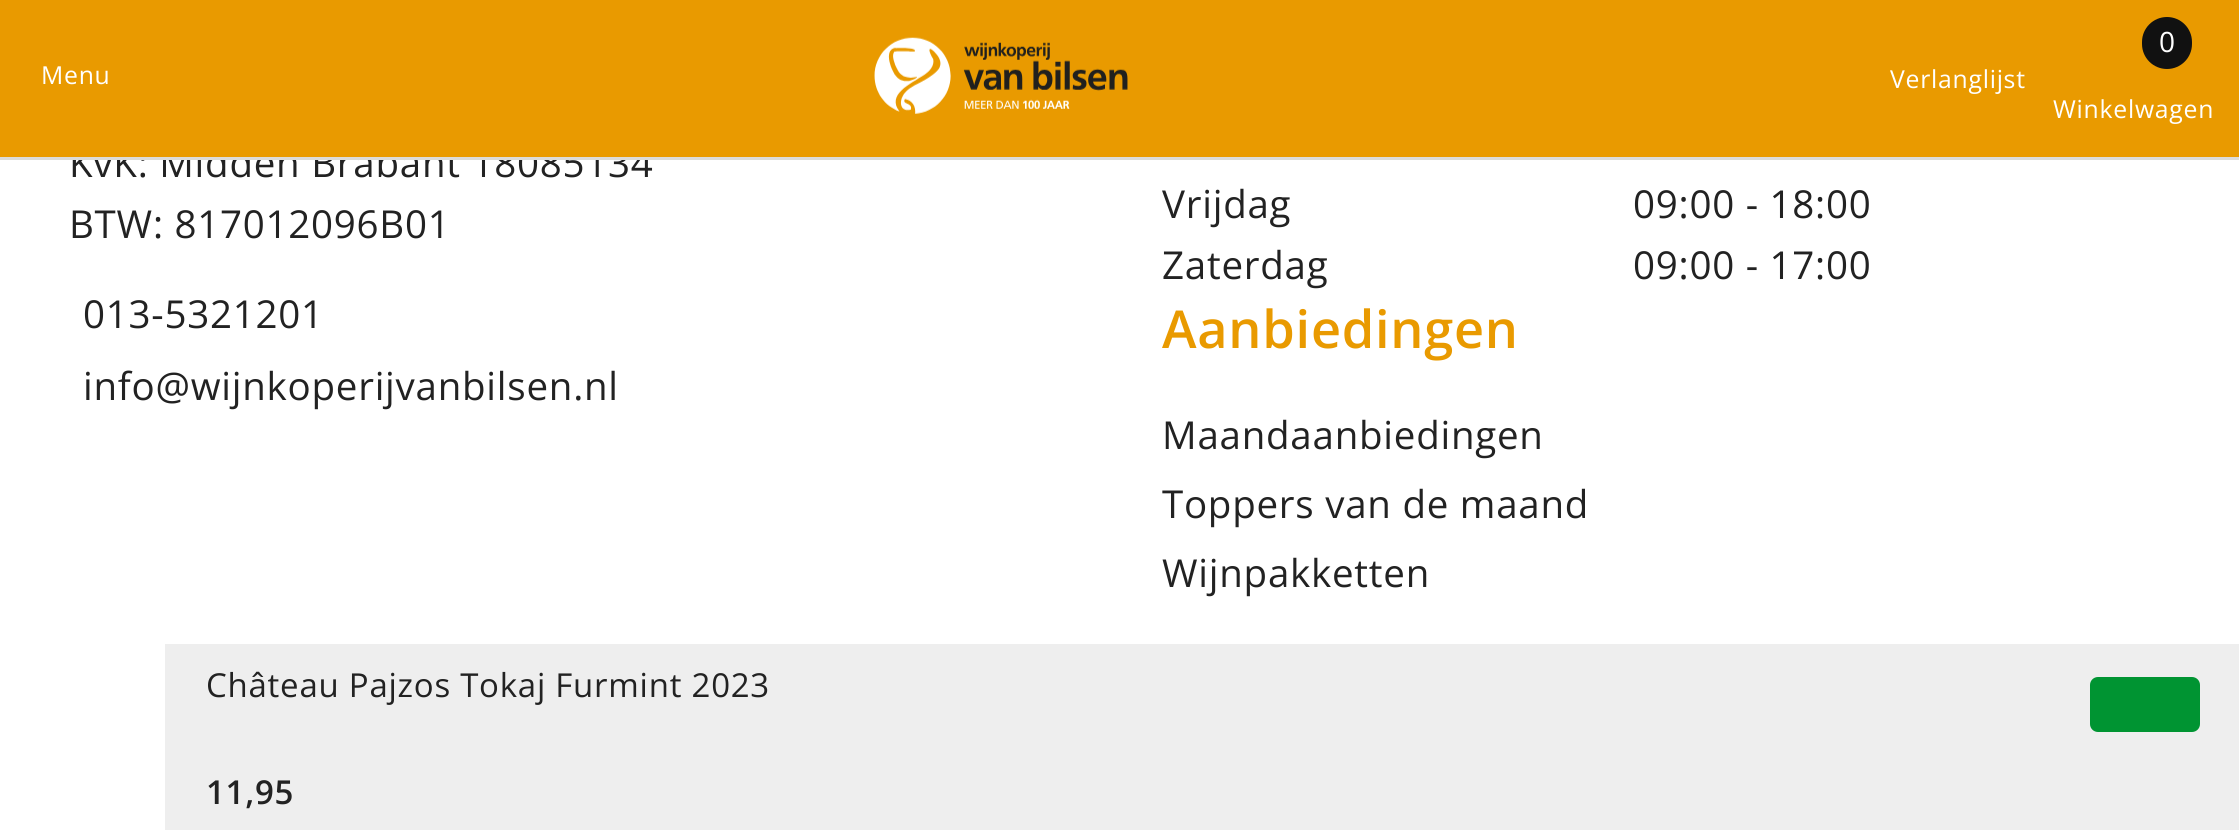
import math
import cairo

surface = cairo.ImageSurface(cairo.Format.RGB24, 2239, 830)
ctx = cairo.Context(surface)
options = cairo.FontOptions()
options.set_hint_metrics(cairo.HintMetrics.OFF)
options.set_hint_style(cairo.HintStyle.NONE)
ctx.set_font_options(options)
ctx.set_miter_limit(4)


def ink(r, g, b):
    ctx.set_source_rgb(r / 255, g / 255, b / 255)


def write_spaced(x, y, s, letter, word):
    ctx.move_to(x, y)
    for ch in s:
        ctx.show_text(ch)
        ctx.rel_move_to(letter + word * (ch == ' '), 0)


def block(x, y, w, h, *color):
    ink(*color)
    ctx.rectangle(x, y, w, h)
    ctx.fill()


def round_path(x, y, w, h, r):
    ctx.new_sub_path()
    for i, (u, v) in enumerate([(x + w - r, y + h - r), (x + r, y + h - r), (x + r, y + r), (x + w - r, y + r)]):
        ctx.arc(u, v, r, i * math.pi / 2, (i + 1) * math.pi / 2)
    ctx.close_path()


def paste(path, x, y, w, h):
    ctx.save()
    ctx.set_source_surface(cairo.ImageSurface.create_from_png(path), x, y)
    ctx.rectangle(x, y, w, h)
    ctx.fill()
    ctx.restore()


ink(255, 255, 255)
ctx.paint()
ctx.select_font_face("Open Sans")
ctx.set_font_size(38.5)
ink(34, 34, 34)
write_spaced(69, 177, "KvK: Midden Brabant 18085134", 0.75, 0)
block(0, 0, 2239, 157, 233, 154, 0)
block(0, 157, 2239, 3, 219, 219, 219)
ctx.set_font_size(24.75)
ink(255, 255, 255)
write_spaced(41, 84, "Menu", 0.75, 0)
paste("pic1.png", 874, 37, 254, 77)
write_spaced(1890, 88, "Verlanglijst", 0.75, 0)
ink(17, 17, 17)
round_path(2142, 17, 50, 52, 25)
ctx.fill()
ctx.set_font_size(28)
ink(255, 255, 255)
write_spaced(2159, 52, "0", 0.75, 0)
ctx.set_font_size(24.75)
write_spaced(2053, 118, "Winkelwagen", 0.75, 0)
ctx.set_font_size(38.5)
ink(34, 34, 34)
write_spaced(69, 238, "BTW: 817012096B01", 0.75, 0)
write_spaced(83, 328, "013-5321201", 0.75, 0)
write_spaced(83, 400, "info@wijnkoperijvanbilsen.nl", 0.75, 0)
write_spaced(1162, 218, "Vrijdag", 0.75, 0)
write_spaced(1633, 218, "09:00 - 18:00", 0.75, 0)
write_spaced(1162, 279, "Zaterdag", 0.75, 0)
write_spaced(1633, 279, "09:00 - 17:00", 0.75, 0)
ctx.select_font_face("Open Sans SemiBold")
ctx.set_font_size(52.25)
ink(233, 154, 0)
write_spaced(1162, 348, "Aanbiedingen", 0.75, 0)
ctx.select_font_face("Open Sans")
ctx.set_font_size(38.5)
ink(34, 34, 34)
write_spaced(1162, 449, "Maandaanbiedingen", 0.75, 0)
write_spaced(1162, 518, "Toppers van de maand", 0.75, 0)
write_spaced(1162, 587, "Wijnpakketten", 0.75, 0)
block(165, 644, 2074, 186, 238, 238, 238)
ctx.set_font_size(33)
ink(34, 34, 34)
write_spaced(206, 697, "Château Pajzos Tokaj Furmint 2023", 0.75, 0)
ctx.select_font_face("Open Sans SemiBold")
write_spaced(206, 804, "11,95", 0.75, 0)
ink(0, 148, 50)
round_path(2090, 677, 110, 55, 8)
ctx.fill()
surface.write_to_png("screenshot.png")
